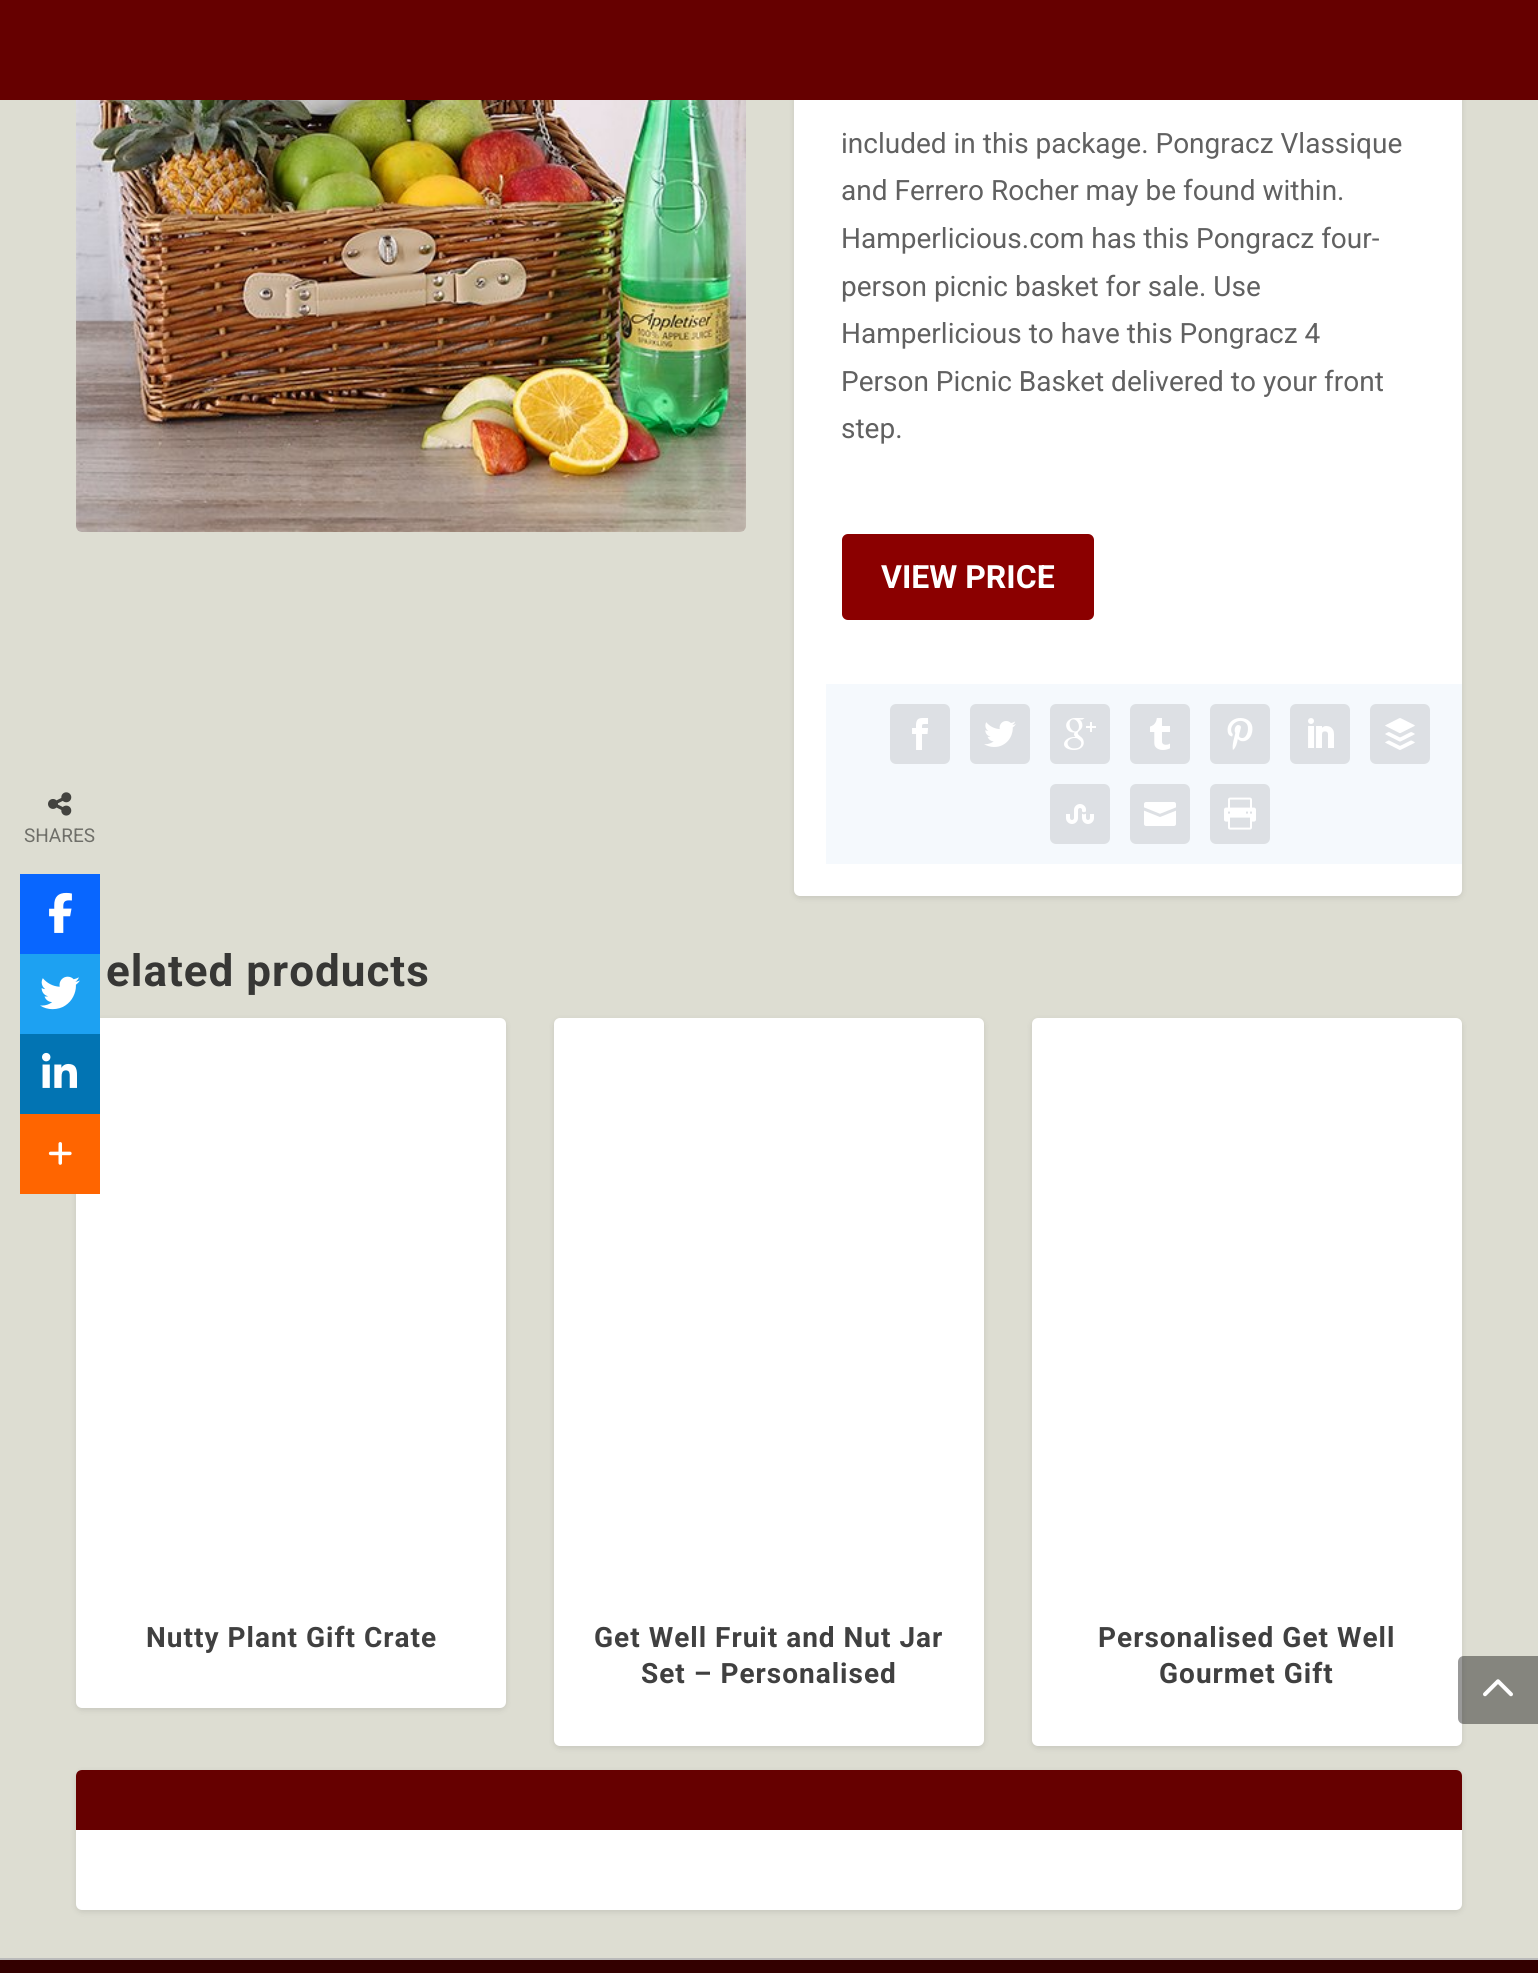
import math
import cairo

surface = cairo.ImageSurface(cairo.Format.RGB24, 1538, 1973)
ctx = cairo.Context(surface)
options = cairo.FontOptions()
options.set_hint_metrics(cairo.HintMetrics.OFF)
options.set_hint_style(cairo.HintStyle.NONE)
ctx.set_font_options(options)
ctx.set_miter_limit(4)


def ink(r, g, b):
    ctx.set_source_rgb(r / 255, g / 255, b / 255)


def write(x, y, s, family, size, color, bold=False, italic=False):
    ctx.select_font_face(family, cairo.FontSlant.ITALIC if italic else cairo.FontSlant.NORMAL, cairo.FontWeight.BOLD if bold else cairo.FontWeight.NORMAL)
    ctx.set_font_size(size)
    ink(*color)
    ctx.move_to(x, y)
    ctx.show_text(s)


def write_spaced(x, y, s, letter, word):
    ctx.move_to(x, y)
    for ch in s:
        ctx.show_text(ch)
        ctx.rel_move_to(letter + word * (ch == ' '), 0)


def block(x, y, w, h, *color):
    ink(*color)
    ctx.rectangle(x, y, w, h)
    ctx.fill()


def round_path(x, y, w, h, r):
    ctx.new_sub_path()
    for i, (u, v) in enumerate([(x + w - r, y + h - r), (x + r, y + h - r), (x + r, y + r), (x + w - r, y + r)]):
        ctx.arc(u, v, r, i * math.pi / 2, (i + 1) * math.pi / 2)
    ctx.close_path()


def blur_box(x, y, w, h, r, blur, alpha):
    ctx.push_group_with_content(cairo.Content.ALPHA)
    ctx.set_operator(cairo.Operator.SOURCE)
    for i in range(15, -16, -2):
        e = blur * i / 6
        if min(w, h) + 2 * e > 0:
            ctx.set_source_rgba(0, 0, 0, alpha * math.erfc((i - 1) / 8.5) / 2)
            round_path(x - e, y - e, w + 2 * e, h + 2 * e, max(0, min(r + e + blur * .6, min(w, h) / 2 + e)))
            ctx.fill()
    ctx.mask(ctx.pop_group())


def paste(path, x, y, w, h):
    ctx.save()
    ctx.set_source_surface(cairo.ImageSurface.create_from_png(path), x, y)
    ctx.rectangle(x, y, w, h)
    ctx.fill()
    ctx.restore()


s1 = dict(family="Roboto", size=19, color=(111, 111, 105))
s2 = dict(family="Roboto", size=28, color=(97, 97, 97))
s3 = dict(family="Roboto", size=32, color=(255, 255, 255), bold=True)

ink(221, 221, 210)
ctx.paint()
ink(0, 0, 0)
blur_box(794, -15, 668, 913, 6, 3, 0.1)
ink(255, 255, 255)
round_path(794, -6, 668, 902, 6)
ctx.fill()
block(0, 0, 1538, 100, 102, 0, 0)
paste("pic1.png", 48, 792, 24, 24)
write(24, 842, "SHARES", **s1)
block(20, 874, 80, 80, 8, 102, 255)
paste("pic2.png", 49, 892, 23, 41)
ink(0, 0, 0)
blur_box(76, 1020, 430, 690, 6, 3, 0.1)
ink(255, 255, 255)
round_path(76, 1018, 430, 690, 6)
ctx.fill()
block(20, 954, 80, 80, 29, 161, 242)
paste("pic3.png", 40, 976, 40, 34)
block(20, 1034, 80, 80, 2, 116, 179)
paste("pic4.png", 42, 1052, 35, 36)
block(20, 1114, 80, 80, 255, 101, 0)
paste("pic5.png", 48, 1142, 24, 23)
paste("pic6.png", 76, 100, 670, 432)
write(841, 153, "included in this package. Pongracz Vlassique", **s2)
write(841, 200, "and Ferrero Rocher may be found within.", **s2)
write(841, 248, "Hamperlicious.com has this Pongracz four-", **s2)
write(841, 296, "person picnic basket for sale. Use", **s2)
write(841, 343, "Hamperlicious to have this Pongracz 4", **s2)
write(841, 391, "Person Picnic Basket delivered to your front", **s2)
write(841, 438, "step.", **s2)
ink(139, 0, 0)
round_path(842, 534, 252, 86, 6)
ctx.fill()
write(881, 588, "VIEW PRICE", **s3)
block(826, 684, 636, 180, 245, 249, 253)
ink(221, 224, 228)
round_path(890, 704, 60, 60, 6)
ctx.fill()
paste("pic7.png", 912, 718, 16, 32)
round_path(970, 704, 60, 60, 6)
ctx.fill()
paste("pic8.png", 984, 721, 32, 26)
round_path(1050, 704, 60, 60, 6)
ctx.fill()
paste("pic9.png", 1064, 718, 32, 32)
round_path(1130, 704, 60, 60, 6)
ctx.fill()
paste("pic10.png", 1150, 718, 20, 32)
round_path(1210, 704, 60, 60, 6)
ctx.fill()
paste("pic11.png", 1227, 718, 26, 32)
round_path(1290, 704, 60, 60, 6)
ctx.fill()
paste("pic12.png", 1308, 718, 26, 30)
round_path(1370, 704, 60, 60, 6)
ctx.fill()
paste("pic13.png", 1385, 718, 30, 32)
round_path(1050, 784, 60, 60, 6)
ctx.fill()
paste("pic14.png", 1066, 804, 28, 20)
round_path(1130, 784, 60, 60, 6)
ctx.fill()
paste("pic15.png", 1144, 802, 32, 24)
round_path(1210, 784, 60, 60, 6)
ctx.fill()
paste("pic16.png", 1224, 797, 32, 33)
ctx.set_font_size(44)
ink(55, 55, 53)
write_spaced(106, 986, "elated products", 1, 0)
ctx.set_font_size(28)
ink(64, 64, 64)
write_spaced(146, 1647, "Nutty Plant Gift Crate", 1, 0)
ink(0, 0, 0)
blur_box(554, 1020, 430, 728, 6, 3, 0.1)
ink(255, 255, 255)
round_path(554, 1018, 430, 728, 6)
ctx.fill()
ink(64, 64, 64)
write_spaced(594, 1647, "Get Well Fruit and Nut Jar", 1, 0)
write_spaced(641, 1683, "Set – Personalised", 1, 0)
ink(0, 0, 0)
blur_box(1032, 1020, 430, 728, 6, 3, 0.1)
ink(255, 255, 255)
round_path(1032, 1018, 430, 728, 6)
ctx.fill()
ink(64, 64, 64)
write_spaced(1098, 1647, "Personalised Get Well", 1, 0)
write_spaced(1159, 1683, "Gourmet Gift", 1, 0)
ink(0, 0, 0)
blur_box(76, 1772, 1386, 140, 6, 3, 0.1)
ink(255, 255, 255)
round_path(76, 1770, 1386, 140, 6)
ctx.fill()
ink(102, 0, 0)
ctx.new_path()
ctx.move_to(82, 1770)
ctx.line_to(1456, 1770)
ctx.curve_to(1459.5, 1770, 1462, 1772.5, 1462, 1776)
ctx.line_to(1462, 1830)
ctx.line_to(76, 1830)
ctx.line_to(76, 1776)
ctx.curve_to(76, 1772.5, 78.5, 1770, 82, 1770)
ctx.close_path()
ctx.fill()
gradient = cairo.LinearGradient(769, 1960, 769, 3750)
gradient.add_color_stop_rgba(0, 0.2, 0, 0, 1)
gradient.add_color_stop_rgba(1, 0.239, 0, 0, 1)
ctx.set_source(gradient)
ctx.rectangle(0, 1960, 1538, 13)
ctx.fill()
block(0, 1958, 1538, 2, 186, 186, 186)
ctx.set_source_rgba(0, 0, 0, 0.4)
ctx.new_path()
ctx.move_to(1464, 1656)
ctx.line_to(1538, 1656)
ctx.line_to(1538, 1724)
ctx.line_to(1464, 1724)
ctx.curve_to(1460.5, 1724, 1458, 1721.5, 1458, 1718)
ctx.line_to(1458, 1662)
ctx.curve_to(1458, 1658.5, 1460.5, 1656, 1464, 1656)
ctx.close_path()
ctx.fill()
paste("pic17.png", 1483, 1679, 30, 18)
surface.write_to_png("screenshot.png")
